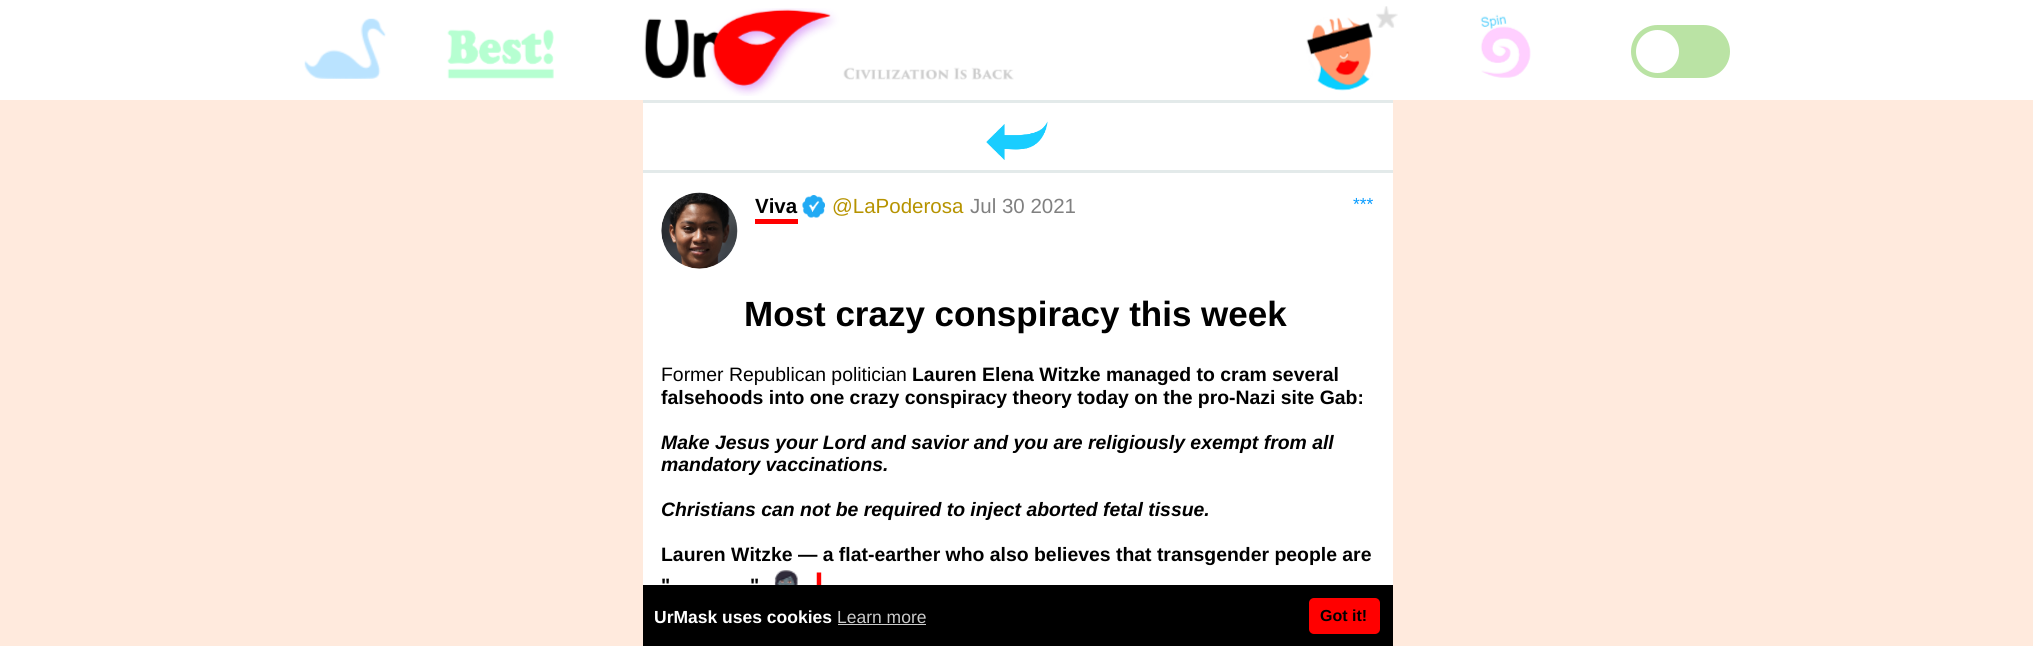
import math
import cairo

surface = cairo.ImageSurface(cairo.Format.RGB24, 2033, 646)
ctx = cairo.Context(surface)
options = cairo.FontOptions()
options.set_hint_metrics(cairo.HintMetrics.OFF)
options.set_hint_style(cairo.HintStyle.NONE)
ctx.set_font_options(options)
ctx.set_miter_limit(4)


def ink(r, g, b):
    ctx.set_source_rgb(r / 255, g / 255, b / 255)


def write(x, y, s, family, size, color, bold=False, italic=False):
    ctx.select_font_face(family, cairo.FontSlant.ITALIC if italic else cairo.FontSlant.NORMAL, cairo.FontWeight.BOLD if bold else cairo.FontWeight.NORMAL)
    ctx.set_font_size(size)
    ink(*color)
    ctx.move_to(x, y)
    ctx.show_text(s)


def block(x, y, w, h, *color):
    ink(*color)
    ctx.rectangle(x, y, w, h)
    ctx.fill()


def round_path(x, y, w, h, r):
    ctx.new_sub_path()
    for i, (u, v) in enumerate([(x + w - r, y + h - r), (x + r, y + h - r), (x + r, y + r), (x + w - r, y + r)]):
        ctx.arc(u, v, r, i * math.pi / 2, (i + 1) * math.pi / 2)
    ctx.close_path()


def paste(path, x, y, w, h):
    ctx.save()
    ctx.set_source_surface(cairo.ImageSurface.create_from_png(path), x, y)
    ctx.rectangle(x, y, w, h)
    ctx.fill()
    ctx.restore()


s1 = dict(family="Liberation Sans", size=20.5, color=(0, 0, 0), bold=True)
s2 = dict(family="Liberation Sans", size=20.5, color=(182, 147, 0))
s3 = dict(family="Liberation Sans", size=20.5, color=(128, 128, 128))
s4 = dict(family="Liberation Sans", size=17.5, color=(9, 156, 255))
s5 = dict(family="Liberation Sans", size=35, color=(0, 0, 0), bold=True)
s6 = dict(family="Liberation Sans", size=19.4, color=(0, 0, 0), bold=True)
s7 = dict(family="Liberation Sans", size=19.4, color=(0, 0, 0), bold=True, italic=True)
s8 = dict(family="Liberation Sans", size=19.4, color=(0, 0, 0))
s9 = dict(family="Liberation Sans", size=17.5, color=(255, 255, 255), bold=True)
s10 = dict(family="Liberation Sans", size=17.5, color=(204, 204, 204))
s11 = dict(family="Liberation Sans", size=16, color=(0, 0, 0), bold=True)

ink(255, 234, 221)
ctx.paint()
block(0, 0, 2033, 100, 255, 255, 255)
paste("pic1.png", 304, 18, 82, 61)
paste("pic2.png", 447, 29, 107, 50)
paste("pic3.png", 644, 8, 370, 88)
paste("pic4.png", 1306, 17, 67, 74)
paste("pic5.png", 1376, 6, 22, 22)
paste("pic6.png", 1480, 14, 51, 64)
ink(186, 227, 164)
round_path(1631, 25, 99, 53, 26.5)
ctx.fill()
ink(255, 255, 255)
ctx.arc(1657.5, 51.5, 21.5, 0, 2 * math.pi)
ctx.fill()
block(643, 103, 750, 67, 255, 255, 255)
block(643, 100, 750, 3, 227, 234, 234)
block(643, 170, 750, 3, 227, 234, 234)
paste("pic7.png", 986, 121, 62, 39)
block(643, 173, 750, 412, 255, 255, 255)
paste("pic8.png", 661, 192, 77, 77)
write(755, 213, "Viva", **s1)
block(755, 219, 43, 5, 255, 0, 0)
paste("pic9.png", 802, 195, 23, 23)
write(832, 213, "@LaPoderosa", **s2)
write(970, 213, "Jul 30 2021", **s3)
write(1353, 210, "***", **s4)
write(744, 326, "Most crazy conspiracy this week", **s5)
write(912, 381, "Lauren Elena Witzke managed to cram several", **s6)
write(661, 404, "falsehoods into one crazy conspiracy theory today on the pro-Nazi site Gab:", **s6)
write(661, 449, "Make Jesus your Lord and savior and you are religiously exempt from all", **s7)
write(661, 471, "mandatory vaccinations.", **s7)
write(661, 516, "Christians can not be required to inject aborted fetal tissue.", **s7)
write(661, 561, "Lauren Witzke — a flat-earther who also believes that transgender people are", **s6)
write(661, 592, "\"", **s6)
write(750, 592, "\"", **s6)
paste("pic10.png", 774, 570, 25, 15)
paste("pic11.png", 816, 572, 6, 13)
write(661, 381, "Former Republican politician", **s8)
block(643, 585, 750, 61, 0, 0, 0)
write(654, 623, "UrMask uses cookies", **s9)
write(837, 623, "Learn more", **s10)
block(838, 624, 88, 1, 204, 204, 204)
ink(255, 0, 0)
round_path(1309, 598, 71, 36, 5)
ctx.fill()
write(1320, 621, "Got it!", **s11)
surface.write_to_png("screenshot.png")
